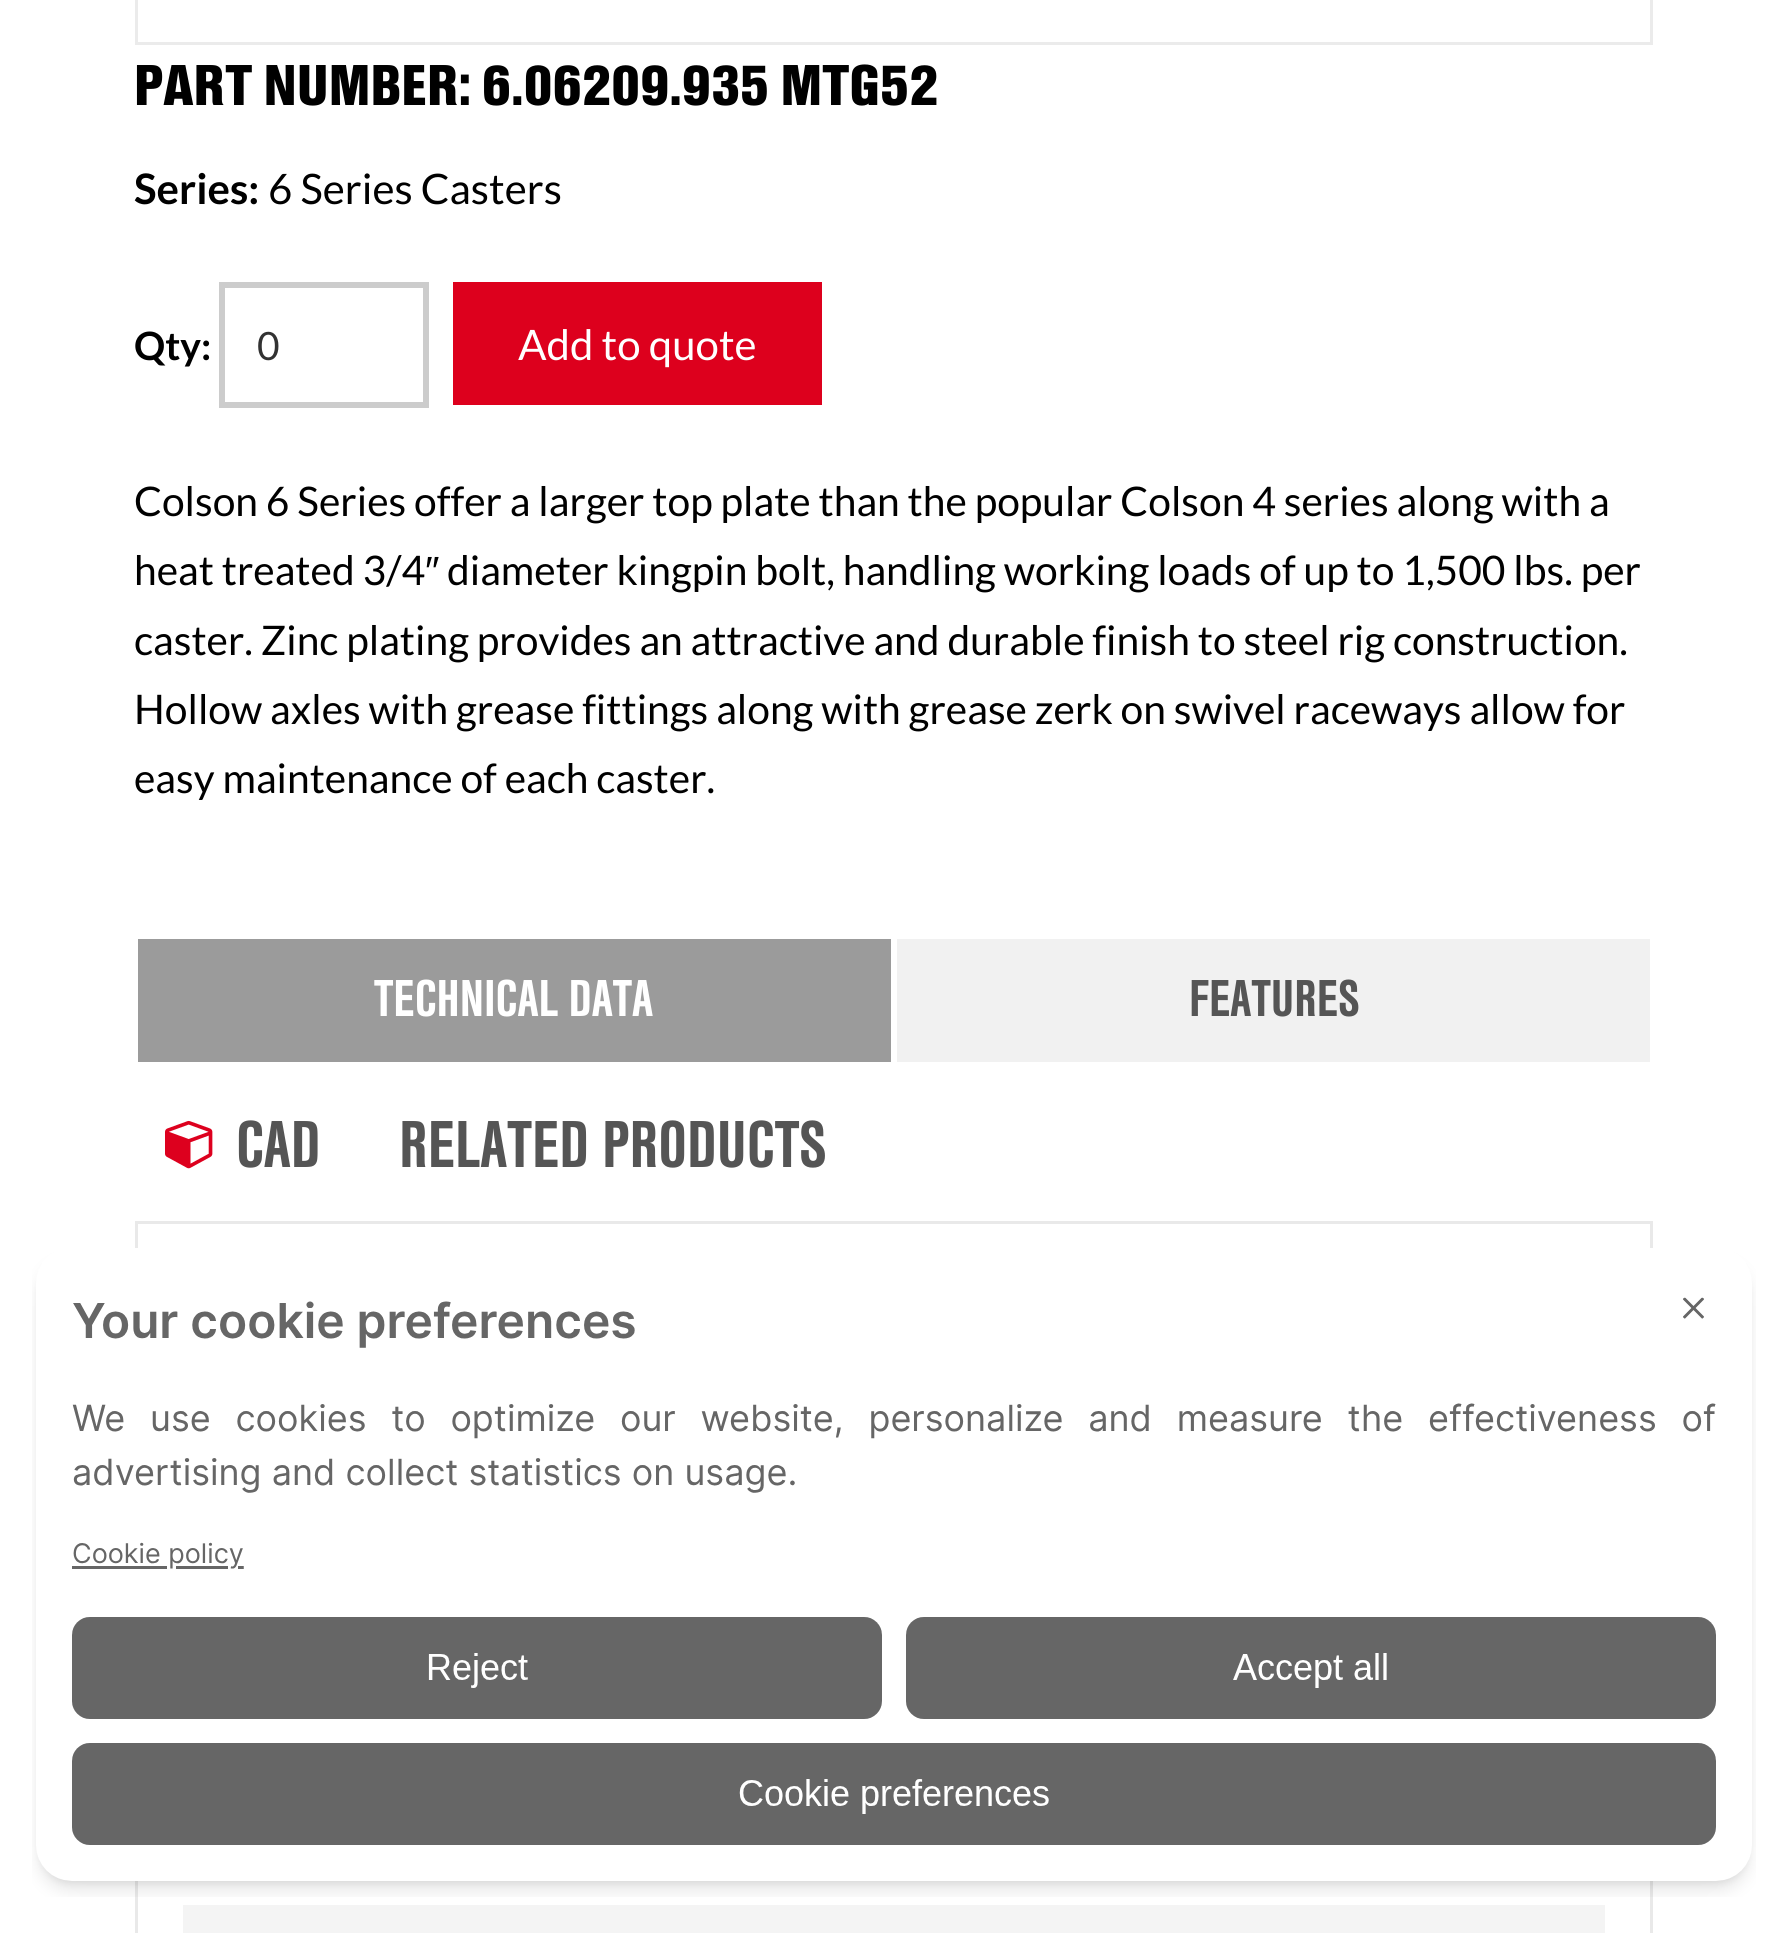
import math
import cairo

surface = cairo.ImageSurface(cairo.Format.RGB24, 1788, 1933)
ctx = cairo.Context(surface)
options = cairo.FontOptions()
options.set_hint_metrics(cairo.HintMetrics.OFF)
options.set_hint_style(cairo.HintStyle.NONE)
ctx.set_font_options(options)
ctx.set_miter_limit(4)


def ink(r, g, b):
    ctx.set_source_rgb(r / 255, g / 255, b / 255)


def write(x, y, s, family, size, color, bold=False, italic=False):
    ctx.select_font_face(family, cairo.FontSlant.ITALIC if italic else cairo.FontSlant.NORMAL, cairo.FontWeight.BOLD if bold else cairo.FontWeight.NORMAL)
    ctx.set_font_size(size)
    ink(*color)
    ctx.move_to(x, y)
    ctx.show_text(s)


def block(x, y, w, h, *color):
    ink(*color)
    ctx.rectangle(x, y, w, h)
    ctx.fill()


def paste(path, x, y, w, h):
    ctx.save()
    ctx.set_source_surface(cairo.ImageSurface.create_from_png(path), x, y)
    ctx.rectangle(x, y, w, h)
    ctx.fill()
    ctx.restore()


s1 = dict(family="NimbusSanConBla", size=60, color=(0, 0, 0))
s2 = dict(family="Lato", size=42, color=(0, 0, 0), bold=True)
s3 = dict(family="Lato", size=42, color=(0, 0, 0))
s4 = dict(family="Lato", size=39, color=(0, 0, 0), bold=True)
s5 = dict(family="Lato", size=39, color=(50, 50, 50))
s6 = dict(family="Lato", size=42, color=(255, 255, 255))
s7 = dict(family="Lato", size=40.75, color=(0, 0, 0))
s8 = dict(family="Liberation Sans", size=40.75, color=(0, 0, 0))
s9 = dict(family="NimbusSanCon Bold", size=54, color=(255, 255, 255), bold=True)
s10 = dict(family="NimbusSanCon Bold", size=54, color=(85, 85, 85), bold=True)
s11 = dict(family="NimbusSanCon Bold", size=69, color=(85, 85, 85), bold=True)

ink(255, 255, 255)
ctx.paint()
ctx.rectangle(136.5, -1.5, 1515, 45)
ink(235, 235, 235)
ctx.set_line_width(3)
ctx.stroke()
write(134, 105, "PART NUMBER: 6.06209.935 MTG52", **s1)
write(134, 204, "Series:", **s2)
write(268, 204, "6 Series Casters", **s3)
write(134, 360, "Qty:", **s4)
ctx.rectangle(222, 285, 204, 120)
ink(204, 204, 204)
ctx.set_line_width(6)
ctx.stroke()
write(257, 360, "0", **s5)
block(453, 282, 369, 123, 221, 0, 29)
write(518, 360, "Add to quote", **s6)
write(134, 516, "Colson 6 Series offer a larger top plate than the popular Colson 4 series along with a", **s7)
write(134, 585, "heat treated 3/4", **s7)
write(425, 585, "″", **s8)
write(447, 585, "diameter kingpin bolt, handling working loads of up to 1,500 lbs. per", **s7)
write(134, 655, "caster. Zinc plating provides an attractive and durable finish to steel rig construction.", **s7)
write(134, 724, "Hollow axles with grease fittings along with grease zerk on swivel raceways allow for", **s7)
write(134, 793, "easy maintenance of each caster.", **s7)
block(138, 939, 753, 123, 155, 155, 155)
write(374, 1016, "TECHNICAL DATA", **s9)
block(897, 939, 753, 123, 241, 241, 241)
write(1189, 1016, "FEATURES", **s10)
paste("pic1.png", 165, 1120, 48, 49)
write(236, 1167, "CAD", **s11)
write(399, 1167, "RELATED PRODUCTS", **s11)
ctx.rectangle(136.5, 1222.5, 1515, 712)
ink(233, 233, 233)
ctx.set_line_width(3)
ctx.stroke()
block(183, 1905, 1422, 28, 244, 244, 244)
paste("pic2.png", 32, 1248, 1724, 649)
surface.write_to_png("screenshot.png")
